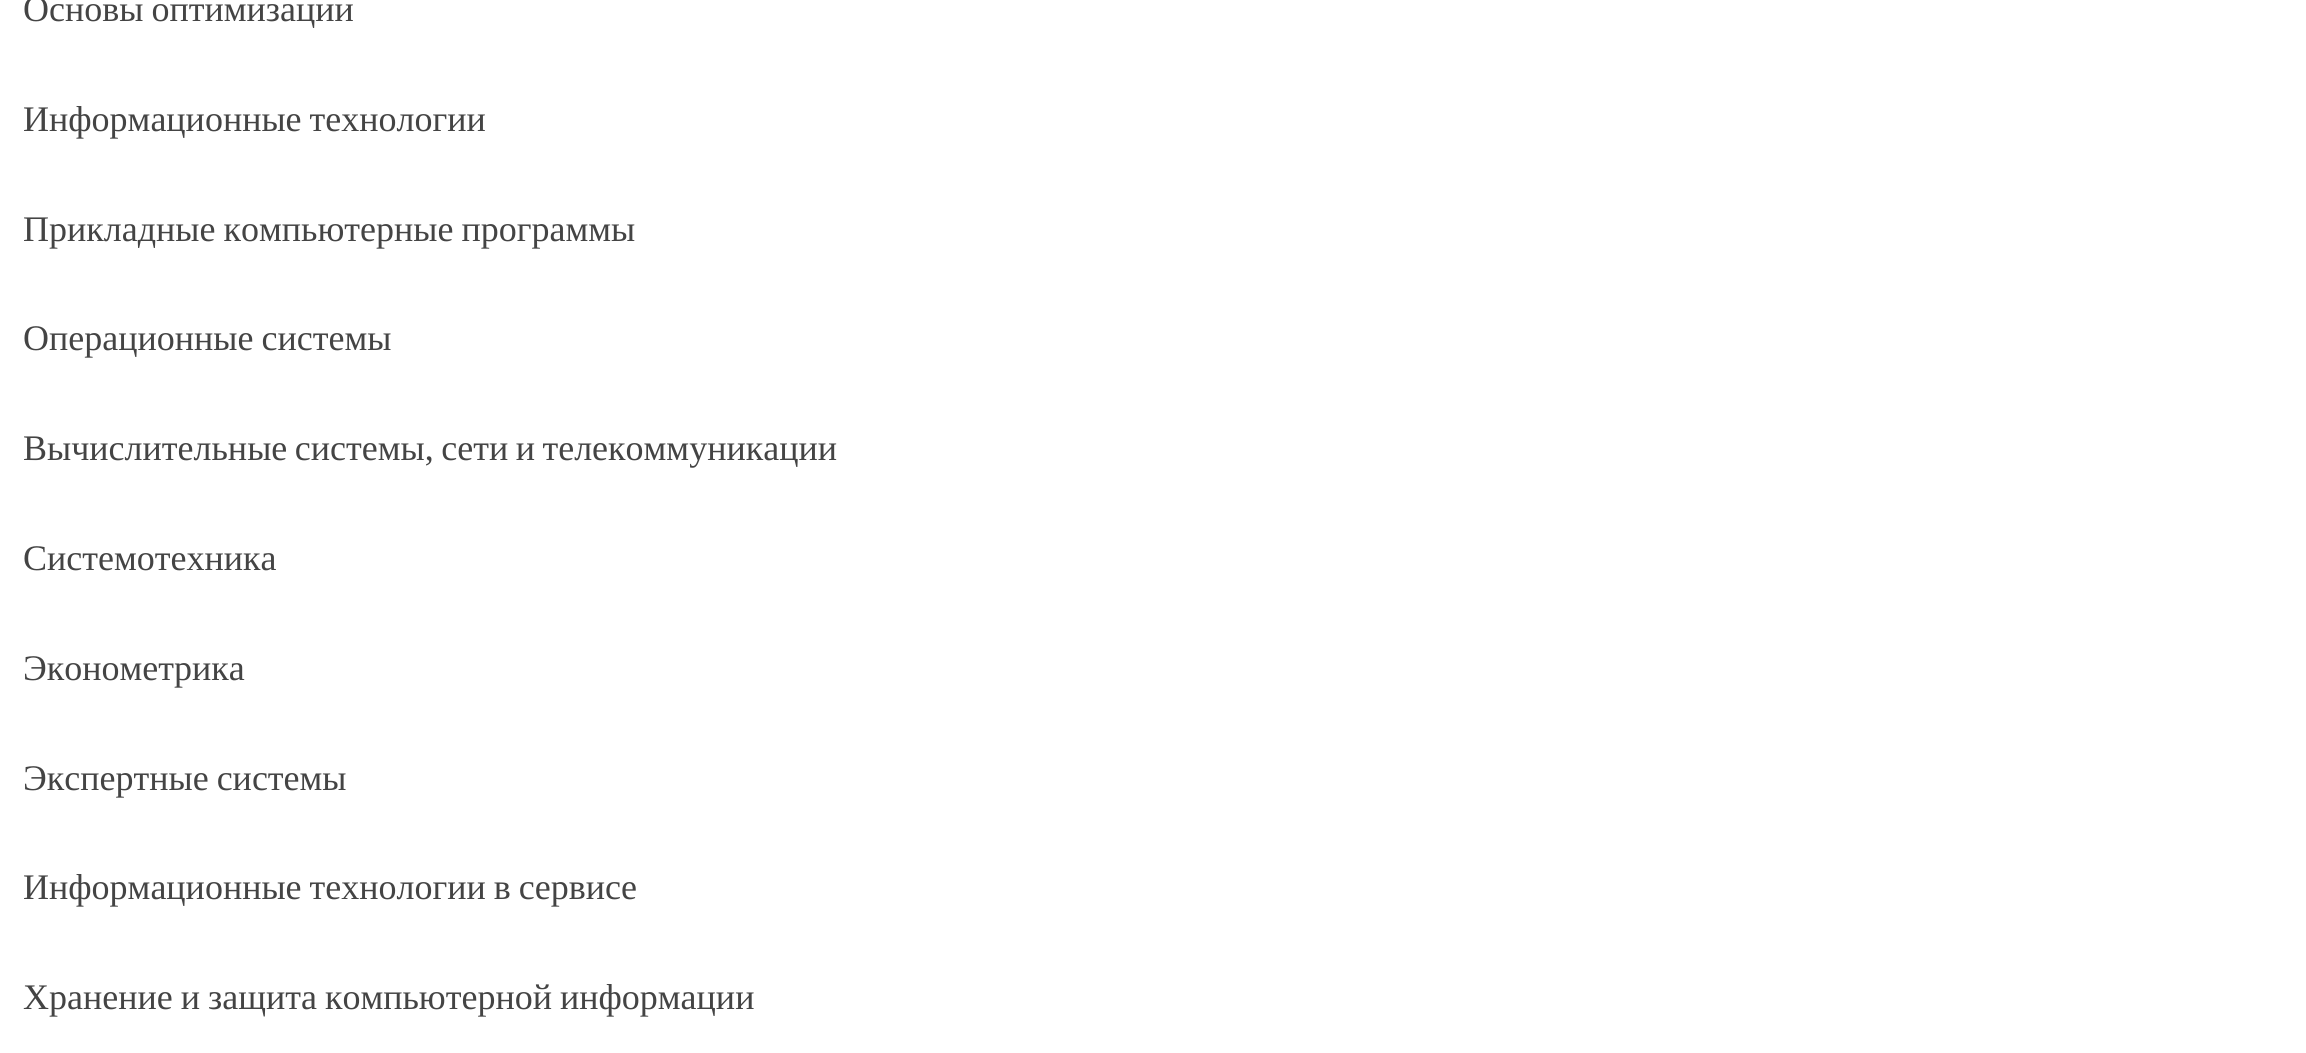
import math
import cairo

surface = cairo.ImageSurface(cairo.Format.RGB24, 2306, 1053)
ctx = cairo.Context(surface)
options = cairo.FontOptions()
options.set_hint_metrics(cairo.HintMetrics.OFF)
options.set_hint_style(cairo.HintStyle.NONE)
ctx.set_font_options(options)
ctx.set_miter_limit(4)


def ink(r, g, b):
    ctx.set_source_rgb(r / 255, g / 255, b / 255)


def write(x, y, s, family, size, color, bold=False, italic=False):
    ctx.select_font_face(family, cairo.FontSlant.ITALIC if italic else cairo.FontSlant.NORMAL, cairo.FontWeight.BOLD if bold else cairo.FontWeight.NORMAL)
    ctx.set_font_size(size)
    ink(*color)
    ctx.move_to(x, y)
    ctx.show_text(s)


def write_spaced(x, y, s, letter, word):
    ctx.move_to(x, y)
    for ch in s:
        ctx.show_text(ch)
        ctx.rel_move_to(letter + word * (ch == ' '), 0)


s1 = dict(family="Liberation Serif", size=36, color=(68, 68, 68))

ink(255, 255, 255)
ctx.paint()
ctx.select_font_face("Liberation Serif")
ctx.set_font_size(36)
ink(68, 68, 68)
write_spaced(23, 21, "Основы оптимизации", 0, -1)
write_spaced(23, 131, "Информационные технологии", 0, -1)
write_spaced(23, 241, "Прикладные компьютерные программы", 0, -1)
write_spaced(23, 350, "Операционные системы", 0, -1)
write_spaced(23, 460, "Вычислительные системы, сети и телекоммуникации", 0, -1.5)
write(23, 570, "Системотехника", **s1)
write(23, 680, "Эконометрика", **s1)
write_spaced(23, 790, "Экспертные системы", 0, -1)
write_spaced(23, 899, "Информационные технологии в сервисе", 0, -1)
write_spaced(23, 1009, "Хранение и защита компьютерной информации", 0, -1)
surface.write_to_png("screenshot.png")
